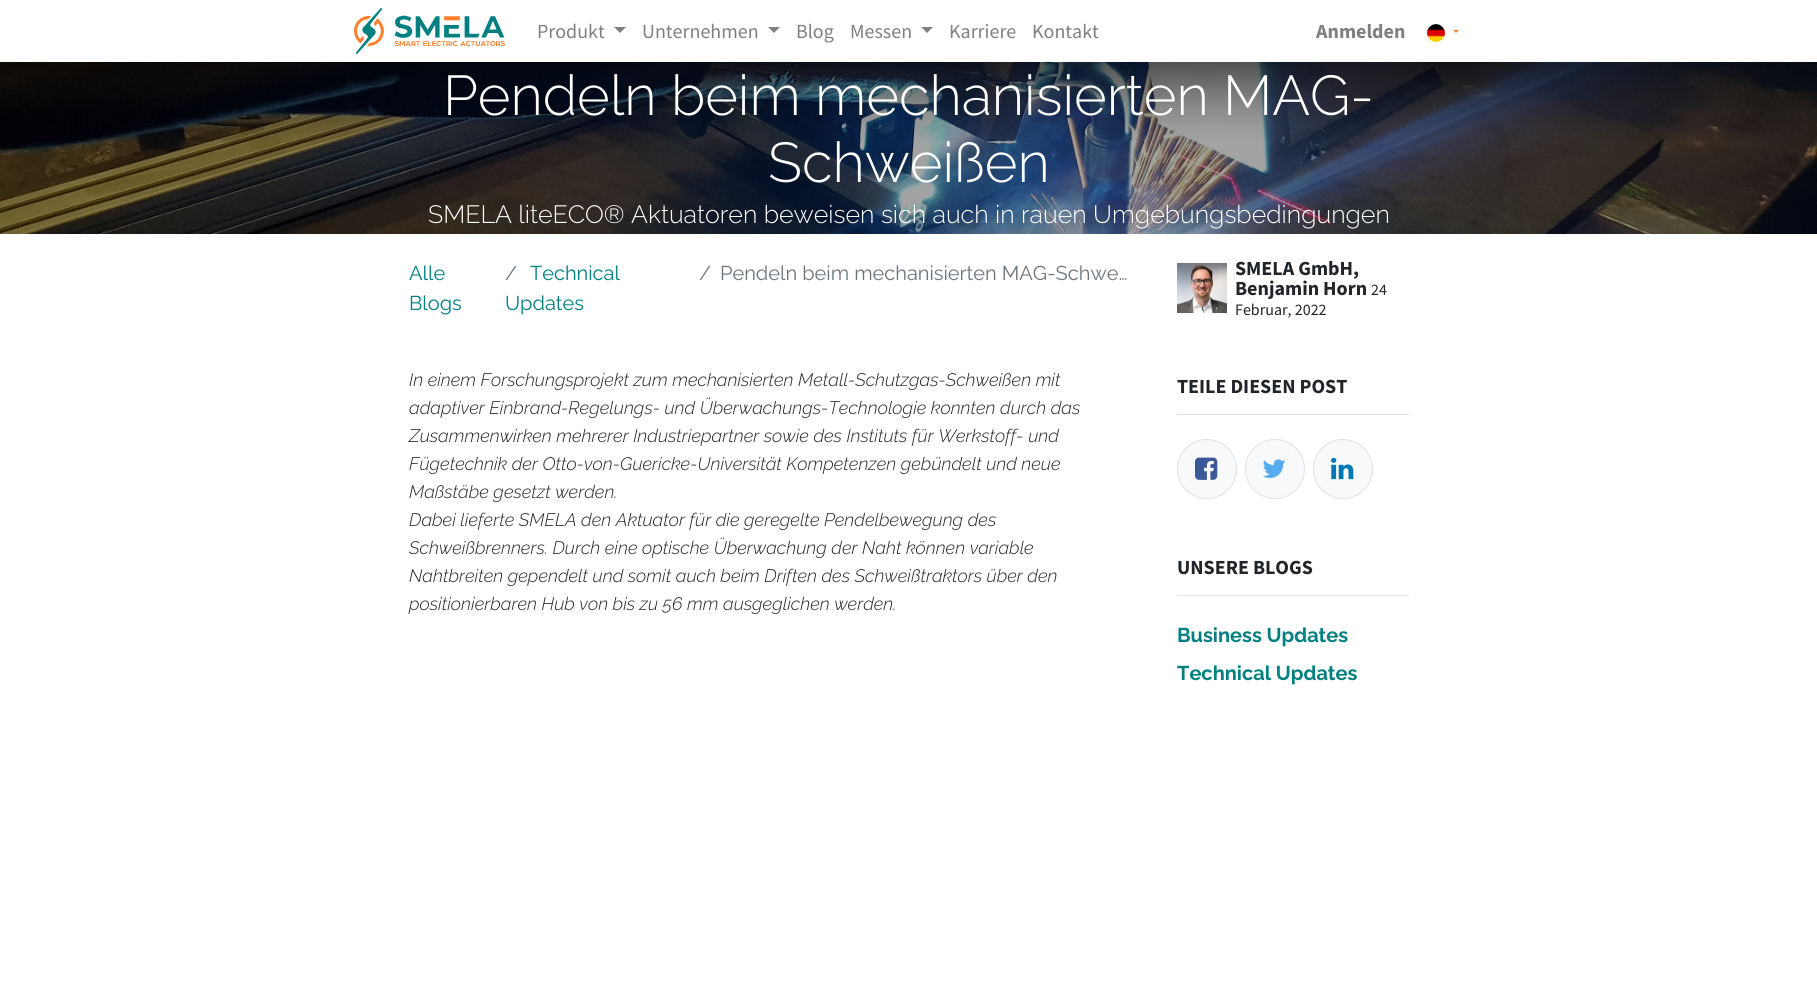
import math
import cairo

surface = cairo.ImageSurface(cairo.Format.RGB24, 1817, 1006)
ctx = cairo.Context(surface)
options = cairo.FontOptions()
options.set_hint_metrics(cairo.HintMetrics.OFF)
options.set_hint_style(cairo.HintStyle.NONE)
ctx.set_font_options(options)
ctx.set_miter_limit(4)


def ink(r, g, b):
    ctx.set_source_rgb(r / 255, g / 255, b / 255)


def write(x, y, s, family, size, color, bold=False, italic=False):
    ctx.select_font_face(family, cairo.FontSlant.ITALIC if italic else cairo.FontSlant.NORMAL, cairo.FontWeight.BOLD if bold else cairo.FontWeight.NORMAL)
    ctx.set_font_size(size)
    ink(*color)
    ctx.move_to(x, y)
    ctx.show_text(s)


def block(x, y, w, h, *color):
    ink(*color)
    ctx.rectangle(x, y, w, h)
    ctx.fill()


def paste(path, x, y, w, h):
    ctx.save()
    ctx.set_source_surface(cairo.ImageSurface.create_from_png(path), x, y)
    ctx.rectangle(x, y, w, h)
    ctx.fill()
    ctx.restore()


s1 = dict(family="Source Sans Pro", size=20, color=(128, 128, 128))
s2 = dict(family="Source Sans Pro", size=20, color=(128, 128, 128), bold=True)
s3 = dict(family="Raleway Light", size=56, color=(255, 255, 255))
s4 = dict(family="Raleway Light", size=25, color=(255, 255, 255))
s5 = dict(family="Raleway", size=20, color=(0, 128, 128))
s6 = dict(family="Raleway", size=20, color=(108, 117, 125))
s7 = dict(family="Raleway Light", size=18, color=(33, 37, 41), italic=True)
s8 = dict(family="Source Sans Pro", size=20, color=(33, 37, 41), bold=True)
s9 = dict(family="Source Sans Pro", size=16, color=(33, 37, 41))
s10 = dict(family="Raleway", size=20, color=(0, 128, 128), bold=True)

ink(255, 255, 255)
ctx.paint()
paste("pic1.png", 354, 8, 151, 46)
write(537, 38, "Produkt", **s1)
ctx.new_path()
ctx.move_to(614, 27)
ctx.line_to(626, 27)
ctx.line_to(620, 33)
ctx.close_path()
ctx.fill()
write(642, 38, "Unternehmen", **s1)
ctx.new_path()
ctx.move_to(768, 27)
ctx.line_to(780, 27)
ctx.line_to(774, 33)
ctx.close_path()
ctx.fill()
write(796, 38, "Blog", **s1)
write(850, 38, "Messen", **s1)
ctx.new_path()
ctx.move_to(921, 27)
ctx.line_to(933, 27)
ctx.line_to(927, 33)
ctx.close_path()
ctx.fill()
write(949, 38, "Karriere", **s1)
write(1032, 38, "Kontakt", **s1)
write(1316, 38, "Anmelden", **s2)
paste("pic2.png", 1427, 24, 18, 18)
ink(255, 127, 42)
ctx.new_path()
ctx.move_to(1453, 30)
ctx.line_to(1459, 30)
ctx.line_to(1456, 33)
ctx.close_path()
ctx.fill()
paste("pic3.png", 0, 62, 1817, 172)
write(443, 115, "Pendeln beim mechanisierten MAG-", **s3)
write(768, 182, "Schweißen", **s3)
write(428, 223, "SMELA liteECO® Aktuatoren beweisen sich auch in rauen Umgebungsbedingungen", **s4)
write(409, 280, "Alle", **s5)
write(409, 310, "Blogs", **s5)
write(505, 280, "/", **s6)
write(530, 280, "Technical", **s5)
write(505, 310, "Updates", **s5)
write(699, 280, "/", **s6)
write(720, 280, "Pendeln beim mechanisierten MAG-Schwe…", **s6)
write(409, 386, "In einem Forschungsprojekt zum mechanisierten Metall-Schutzgas-Schweißen mit", **s7)
write(409, 414, "adaptiver Einbrand-Regelungs- und Überwachungs-Technologie konnten durch das", **s7)
write(409, 442, "Zusammenwirken mehrerer Industriepartner sowie des Instituts für Werkstoff- und", **s7)
write(409, 470, "Fügetechnik der Otto-von-Guericke-Universität Kompetenzen gebündelt und neue", **s7)
write(409, 498, "Maßstäbe gesetzt werden.", **s7)
write(409, 526, "Dabei lieferte SMELA den Aktuator für die geregelte Pendelbewegung des", **s7)
write(409, 554, "Schweißbrenners. Durch eine optische Überwachung der Naht können variable", **s7)
write(409, 582, "Nahtbreiten gependelt und somit auch beim Driften des Schweißtraktors über den", **s7)
write(409, 610, "positionierbaren Hub von bis zu 56 mm ausgeglichen werden.", **s7)
paste("pic4.png", 1177, 263, 50, 50)
write(1235, 275, "SMELA GmbH,", **s8)
write(1235, 295, "Benjamin Horn", **s8)
write(1371, 295, "24", **s9)
write(1235, 315, "Februar, 2022", **s9)
block(1177, 414, 232, 1, 222, 226, 230)
write(1177, 393, "TEILE DIESEN POST", **s8)
ink(248, 249, 250)
ctx.new_path()
ctx.arc(1207, 469, 29.5, 0, 2 * math.pi)
ctx.fill_preserve()
ink(222, 226, 230)
ctx.set_line_width(1)
ctx.stroke()
paste("pic5.png", 1195, 457, 23, 23)
ink(248, 249, 250)
ctx.arc(1275, 469, 29.5, 0, 2 * math.pi)
ctx.fill_preserve()
ink(222, 226, 230)
ctx.stroke()
paste("pic6.png", 1263, 459, 23, 19)
ink(248, 249, 250)
ctx.arc(1343, 469, 29.5, 0, 2 * math.pi)
ctx.fill_preserve()
ink(222, 226, 230)
ctx.stroke()
paste("pic7.png", 1331, 457, 23, 23)
block(1177, 595, 232, 1, 222, 226, 230)
write(1177, 574, "UNSERE BLOGS", **s8)
write(1177, 642, "Business Updates", **s10)
write(1177, 680, "Technical Updates", **s10)
surface.write_to_png("screenshot.png")
